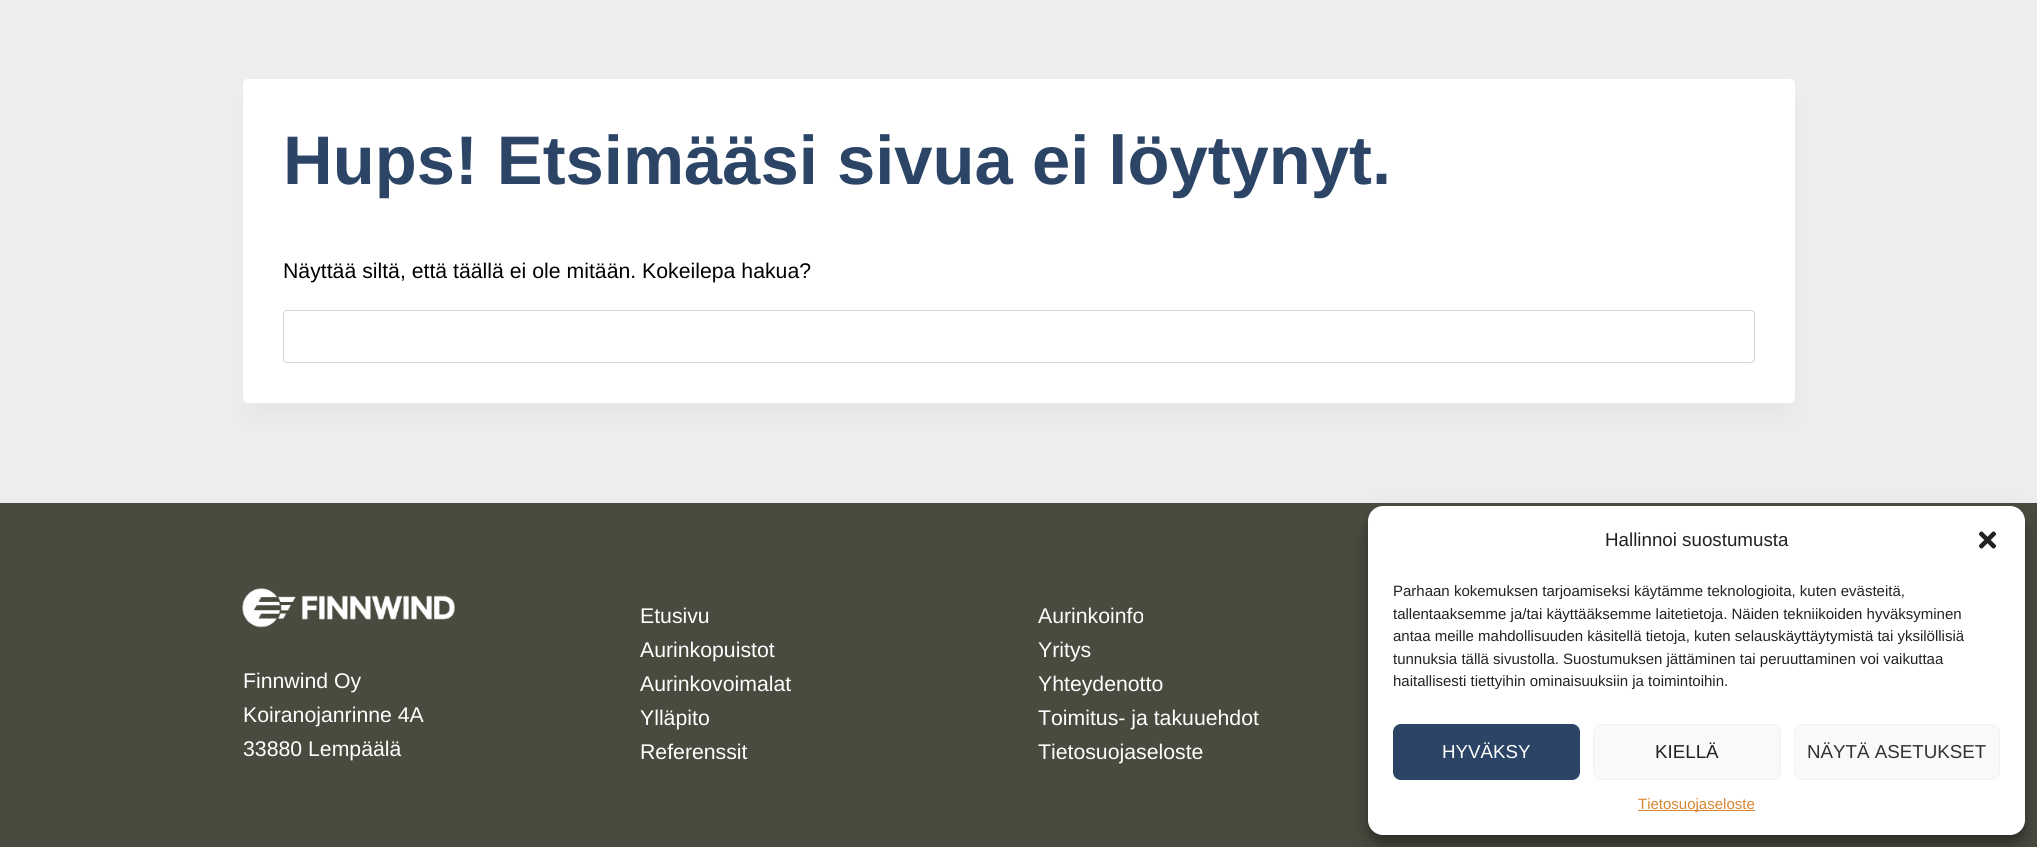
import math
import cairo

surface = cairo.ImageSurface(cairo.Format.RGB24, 2037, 847)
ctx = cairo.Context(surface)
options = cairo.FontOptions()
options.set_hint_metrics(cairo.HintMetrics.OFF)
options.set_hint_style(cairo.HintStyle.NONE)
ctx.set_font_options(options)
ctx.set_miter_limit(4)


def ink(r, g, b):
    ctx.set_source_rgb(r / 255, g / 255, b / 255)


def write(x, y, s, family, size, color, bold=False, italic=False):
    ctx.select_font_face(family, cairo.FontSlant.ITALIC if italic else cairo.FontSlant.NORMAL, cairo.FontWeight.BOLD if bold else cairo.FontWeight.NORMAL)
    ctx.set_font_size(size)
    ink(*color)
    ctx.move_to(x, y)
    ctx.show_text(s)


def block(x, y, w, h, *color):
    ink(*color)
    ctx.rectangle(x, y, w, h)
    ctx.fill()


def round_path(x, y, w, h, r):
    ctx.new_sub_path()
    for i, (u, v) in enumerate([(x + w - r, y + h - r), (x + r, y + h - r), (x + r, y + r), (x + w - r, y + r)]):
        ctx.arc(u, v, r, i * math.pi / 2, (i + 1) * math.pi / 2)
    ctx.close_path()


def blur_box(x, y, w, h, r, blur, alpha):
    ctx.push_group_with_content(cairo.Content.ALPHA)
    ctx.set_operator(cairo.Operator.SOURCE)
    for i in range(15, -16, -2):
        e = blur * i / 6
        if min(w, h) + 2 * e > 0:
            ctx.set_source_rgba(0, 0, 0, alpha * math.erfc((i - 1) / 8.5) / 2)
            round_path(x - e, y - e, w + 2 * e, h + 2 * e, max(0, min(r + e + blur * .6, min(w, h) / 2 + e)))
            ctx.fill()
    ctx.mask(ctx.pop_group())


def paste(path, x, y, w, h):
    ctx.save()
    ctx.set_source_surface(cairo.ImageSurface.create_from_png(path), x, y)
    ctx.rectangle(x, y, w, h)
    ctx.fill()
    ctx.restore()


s1 = dict(family="Liberation Sans", size=68.75, color=(44, 69, 102), bold=True)
s2 = dict(family="Liberation Sans", size=21.25, color=(0, 0, 0))
s3 = dict(family="Liberation Sans", size=21.25, color=(255, 255, 255))
s4 = dict(family="Liberation Sans", size=18.75, color=(34, 34, 34))
s5 = dict(family="Liberation Sans", size=15, color=(34, 34, 34))
s6 = dict(family="Liberation Sans", size=18.75, color=(255, 255, 255))
s7 = dict(family="Liberation Sans", size=18.75, color=(51, 51, 51))
s8 = dict(family="Liberation Sans", size=15, color=(214, 134, 48))

ink(237, 237, 237)
ctx.paint()
ink(0, 0, 0)
blur_box(255, 110, 1528, 299, 0, 15.5, 0.05)
ink(255, 255, 255)
round_path(243, 79, 1552, 324, 5)
ctx.fill()
write(283, 184, "Hups! Etsimääsi sivua ei löytynyt.", **s1)
write(283, 278, "Näyttää siltä, että täällä ei ole mitään. Kokeilepa hakua?", **s2)
round_path(283.5, 310.5, 1471, 52, 3.5)
ink(203, 213, 224)
ctx.set_line_width(1)
ctx.stroke()
block(0, 503, 2037, 344, 72, 75, 62)
paste("pic1.png", 242, 588, 213, 40)
write(243, 688, "Finnwind Oy", **s3)
write(243, 722, "Koiranojanrinne 4A", **s3)
write(243, 756, "33880 Lempäälä", **s3)
write(640, 623, "Etusivu", **s3)
write(640, 657, "Aurinkopuistot", **s3)
write(640, 691, "Aurinkovoimalat", **s3)
write(640, 725, "Ylläpito", **s3)
write(640, 759, "Referenssit", **s3)
write(1038, 623, "Aurinkoinfo", **s3)
write(1038, 657, "Yritys", **s3)
write(1038, 691, "Yhteydenotto", **s3)
write(1038, 725, "Toimitus- ja takuuehdot", **s3)
write(1038, 759, "Tietosuojaseloste", **s3)
ink(0, 0, 0)
blur_box(1368, 514, 657, 329, 15, 4, 0.23)
blur_box(1368, 519, 657, 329, 15, 12.5, 0.19)
ink(255, 255, 255)
round_path(1368, 506, 657, 329, 15)
ctx.fill()
write(1605, 546, "Hallinnoi suostumusta", **s4)
paste("pic2.png", 1978, 531, 19, 18)
write(1393, 596, "Parhaan kokemuksen tarjoamiseksi käytämme teknologioita, kuten evästeitä,", **s5)
write(1393, 619, "tallentaaksemme ja/tai käyttääksemme laitetietoja. Näiden tekniikoiden hyväksyminen", **s5)
write(1393, 641, "antaa meille mahdollisuuden käsitellä tietoja, kuten selauskäyttäytymistä tai yksilöllisiä", **s5)
write(1393, 664, "tunnuksia tällä sivustolla. Suostumuksen jättäminen tai peruuttaminen voi vaikuttaa", **s5)
write(1393, 686, "haitallisesti tiettyihin ominaisuuksiin ja toimintoihin.", **s5)
ink(44, 69, 102)
round_path(1393.5, 724.5, 186, 55, 7.5)
ctx.fill_preserve()
ctx.stroke()
write(1442, 758, "HYVÄKSY", **s6)
ink(249, 249, 249)
round_path(1593.5, 724.5, 187, 55, 7.5)
ctx.fill_preserve()
ink(242, 242, 242)
ctx.stroke()
write(1655, 758, "KIELLÄ", **s4)
ink(249, 249, 249)
round_path(1794.5, 724.5, 205, 55, 7.5)
ctx.fill_preserve()
ink(242, 242, 242)
ctx.stroke()
write(1807, 758, "NÄYTÄ ASETUKSET", **s7)
block(1638, 810, 117, 1, 214, 134, 48)
write(1638, 809, "Tietosuojaseloste", **s8)
surface.write_to_png("screenshot.png")
